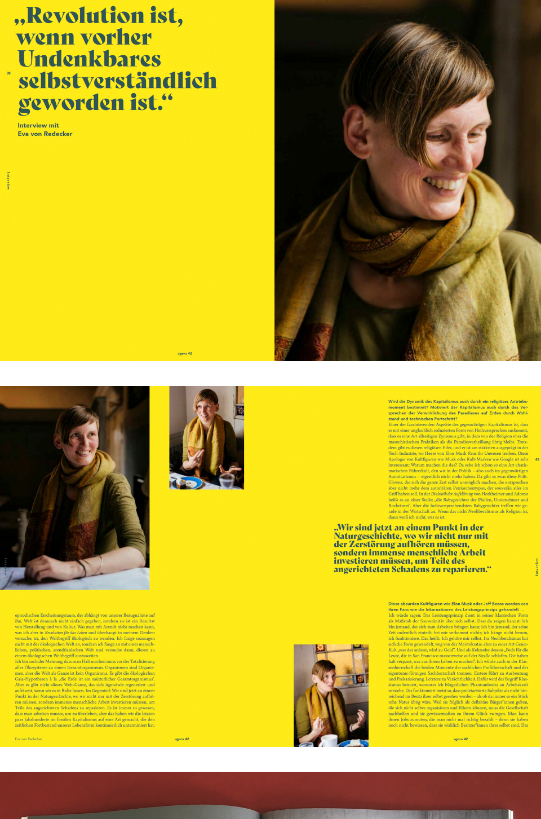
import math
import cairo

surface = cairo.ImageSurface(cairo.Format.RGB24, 541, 819)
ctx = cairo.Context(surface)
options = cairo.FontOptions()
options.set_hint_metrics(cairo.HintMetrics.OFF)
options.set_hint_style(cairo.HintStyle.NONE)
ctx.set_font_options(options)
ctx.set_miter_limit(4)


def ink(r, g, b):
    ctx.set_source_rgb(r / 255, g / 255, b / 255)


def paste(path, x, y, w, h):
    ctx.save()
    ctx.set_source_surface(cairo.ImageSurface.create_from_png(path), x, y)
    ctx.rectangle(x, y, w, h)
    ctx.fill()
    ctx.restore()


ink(255, 255, 255)
ctx.paint()
paste("pic1.png", 0, 0, 541, 361)
paste("pic2.png", 0, 386, 541, 361)
paste("pic3.png", 0, 772, 541, 47)
surface.write_to_png("screenshot.png")
